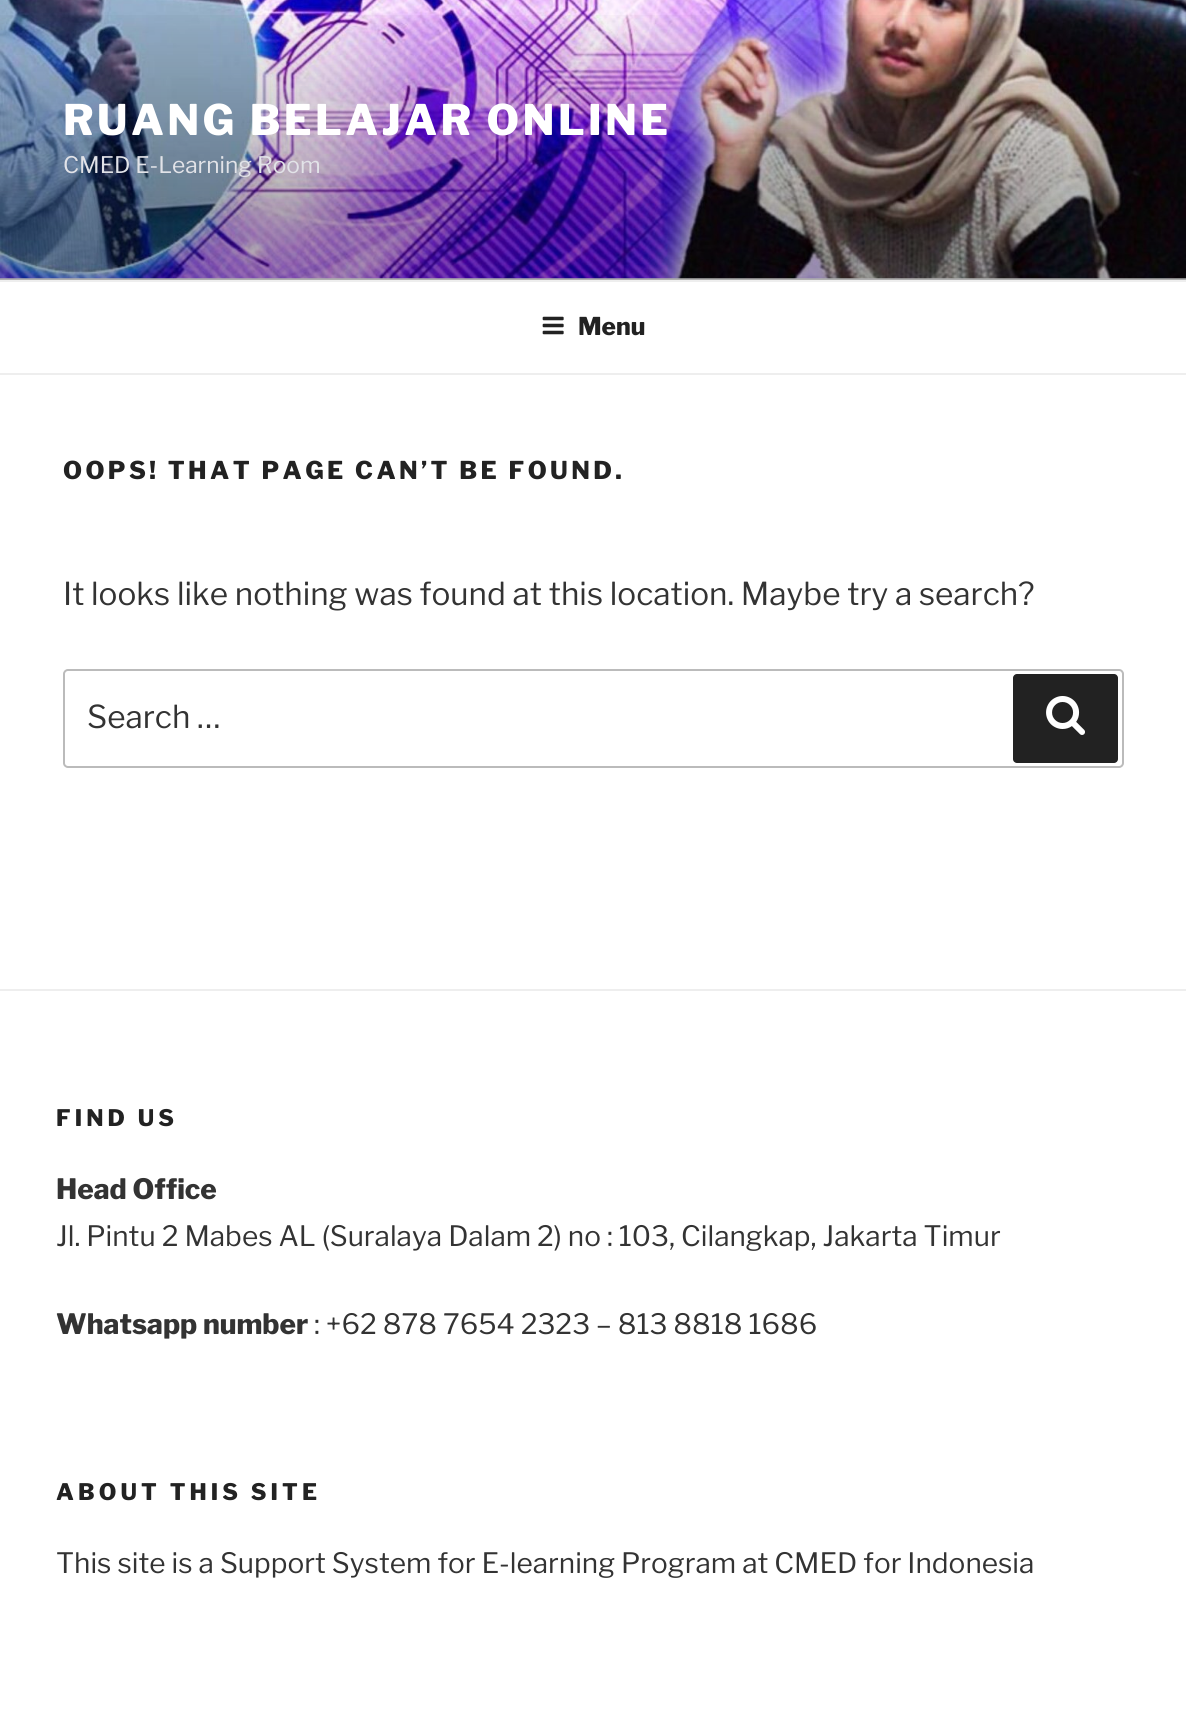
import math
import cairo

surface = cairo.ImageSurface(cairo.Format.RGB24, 1186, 1729)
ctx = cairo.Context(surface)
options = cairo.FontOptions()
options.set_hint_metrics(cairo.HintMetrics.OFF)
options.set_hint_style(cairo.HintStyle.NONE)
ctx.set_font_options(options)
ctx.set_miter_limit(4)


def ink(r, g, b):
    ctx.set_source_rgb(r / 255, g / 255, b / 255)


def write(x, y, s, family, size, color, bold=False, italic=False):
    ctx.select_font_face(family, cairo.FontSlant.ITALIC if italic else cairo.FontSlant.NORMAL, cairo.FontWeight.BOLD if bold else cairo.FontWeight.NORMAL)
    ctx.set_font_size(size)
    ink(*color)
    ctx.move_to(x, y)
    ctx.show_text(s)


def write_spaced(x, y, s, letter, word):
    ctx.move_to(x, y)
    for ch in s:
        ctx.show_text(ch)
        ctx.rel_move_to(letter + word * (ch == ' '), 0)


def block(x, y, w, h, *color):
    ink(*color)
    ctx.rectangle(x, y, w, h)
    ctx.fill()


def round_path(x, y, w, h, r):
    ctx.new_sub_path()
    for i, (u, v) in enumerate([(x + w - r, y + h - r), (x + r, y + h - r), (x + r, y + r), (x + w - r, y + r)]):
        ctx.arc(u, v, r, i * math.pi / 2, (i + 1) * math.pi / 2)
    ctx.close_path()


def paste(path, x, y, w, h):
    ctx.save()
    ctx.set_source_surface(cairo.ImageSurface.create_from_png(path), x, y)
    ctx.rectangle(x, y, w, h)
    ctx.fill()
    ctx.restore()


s1 = dict(family="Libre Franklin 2 Thin", size=22.75, color=(226, 227, 232))
s2 = dict(family="Libre Franklin Thin", size=24.5, color=(34, 34, 34))
s3 = dict(family="Libre Franklin 2 Thin", size=31.5, color=(51, 51, 51))
s4 = dict(family="Libre Franklin Thin", size=28, color=(51, 51, 51))
s5 = dict(family="Libre Franklin 2 Thin", size=28, color=(51, 51, 51))

ink(255, 255, 255)
ctx.paint()
block(0, 278, 1186, 2, 250, 250, 250)
paste("pic1.png", 0, 0, 1186, 279)
gradient = cairo.LinearGradient(593, 0, 593, 280)
gradient.add_color_stop_rgba(0, 0, 0, 0, 0)
gradient.add_color_stop_rgba(0.75, 0, 0, 0, 0.3)
gradient.add_color_stop_rgba(1, 0, 0, 0, 0.3)
ctx.set_source(gradient)
ctx.rectangle(0, 15, 1186, 265)
ctx.fill()
ctx.select_font_face("Libre Franklin Thin")
ctx.set_font_size(42)
ink(255, 255, 255)
write_spaced(63, 135, "RUANG BELAJAR ONLINE", 3.4, 0)
write(63, 173, "CMED E-Learning Room", **s1)
block(0, 280, 1186, 2, 238, 238, 238)
block(0, 373, 1186, 2, 238, 238, 238)
paste("pic2.png", 542, 316, 22, 19)
write(578, 335, "Menu", **s2)
write_spaced(63, 479, "OOPS! THAT PAGE CAN’T BE FOUND.", 3.4, 0)
write(63, 605, "It looks like nothing was found at this location. Maybe try a search?", **s3)
round_path(64, 670, 1059, 97, 4)
ink(187, 187, 187)
ctx.stroke()
write(87, 728, "Search …", **s3)
ink(34, 34, 34)
round_path(1013, 674, 105, 89, 4)
ctx.fill()
paste("pic3.png", 1046, 696, 39, 39)
block(0, 989, 1186, 2, 238, 238, 238)
ctx.select_font_face("Libre Franklin Thin")
ctx.set_font_size(22.75)
ink(34, 34, 34)
write_spaced(56, 1126, "FIND US", 4.1, 0)
write(56, 1199, "Head Office", **s4)
write(56, 1246, "Jl. Pintu 2 Mabes AL (Suralaya Dalam 2) no : 103, Cilangkap, Jakarta Timur", **s5)
write(56, 1334, "Whatsapp number", **s4)
write(314, 1334, ": +62 878 7654 2323 – 813 8818 1686", **s5)
ctx.select_font_face("Libre Franklin Thin")
ctx.set_font_size(22.75)
ink(34, 34, 34)
write_spaced(56, 1500, "ABOUT THIS SITE", 4.1, 0)
write(56, 1573, "This site is a Support System for E-learning Program at CMED for Indonesia", **s5)
surface.write_to_png("screenshot.png")
